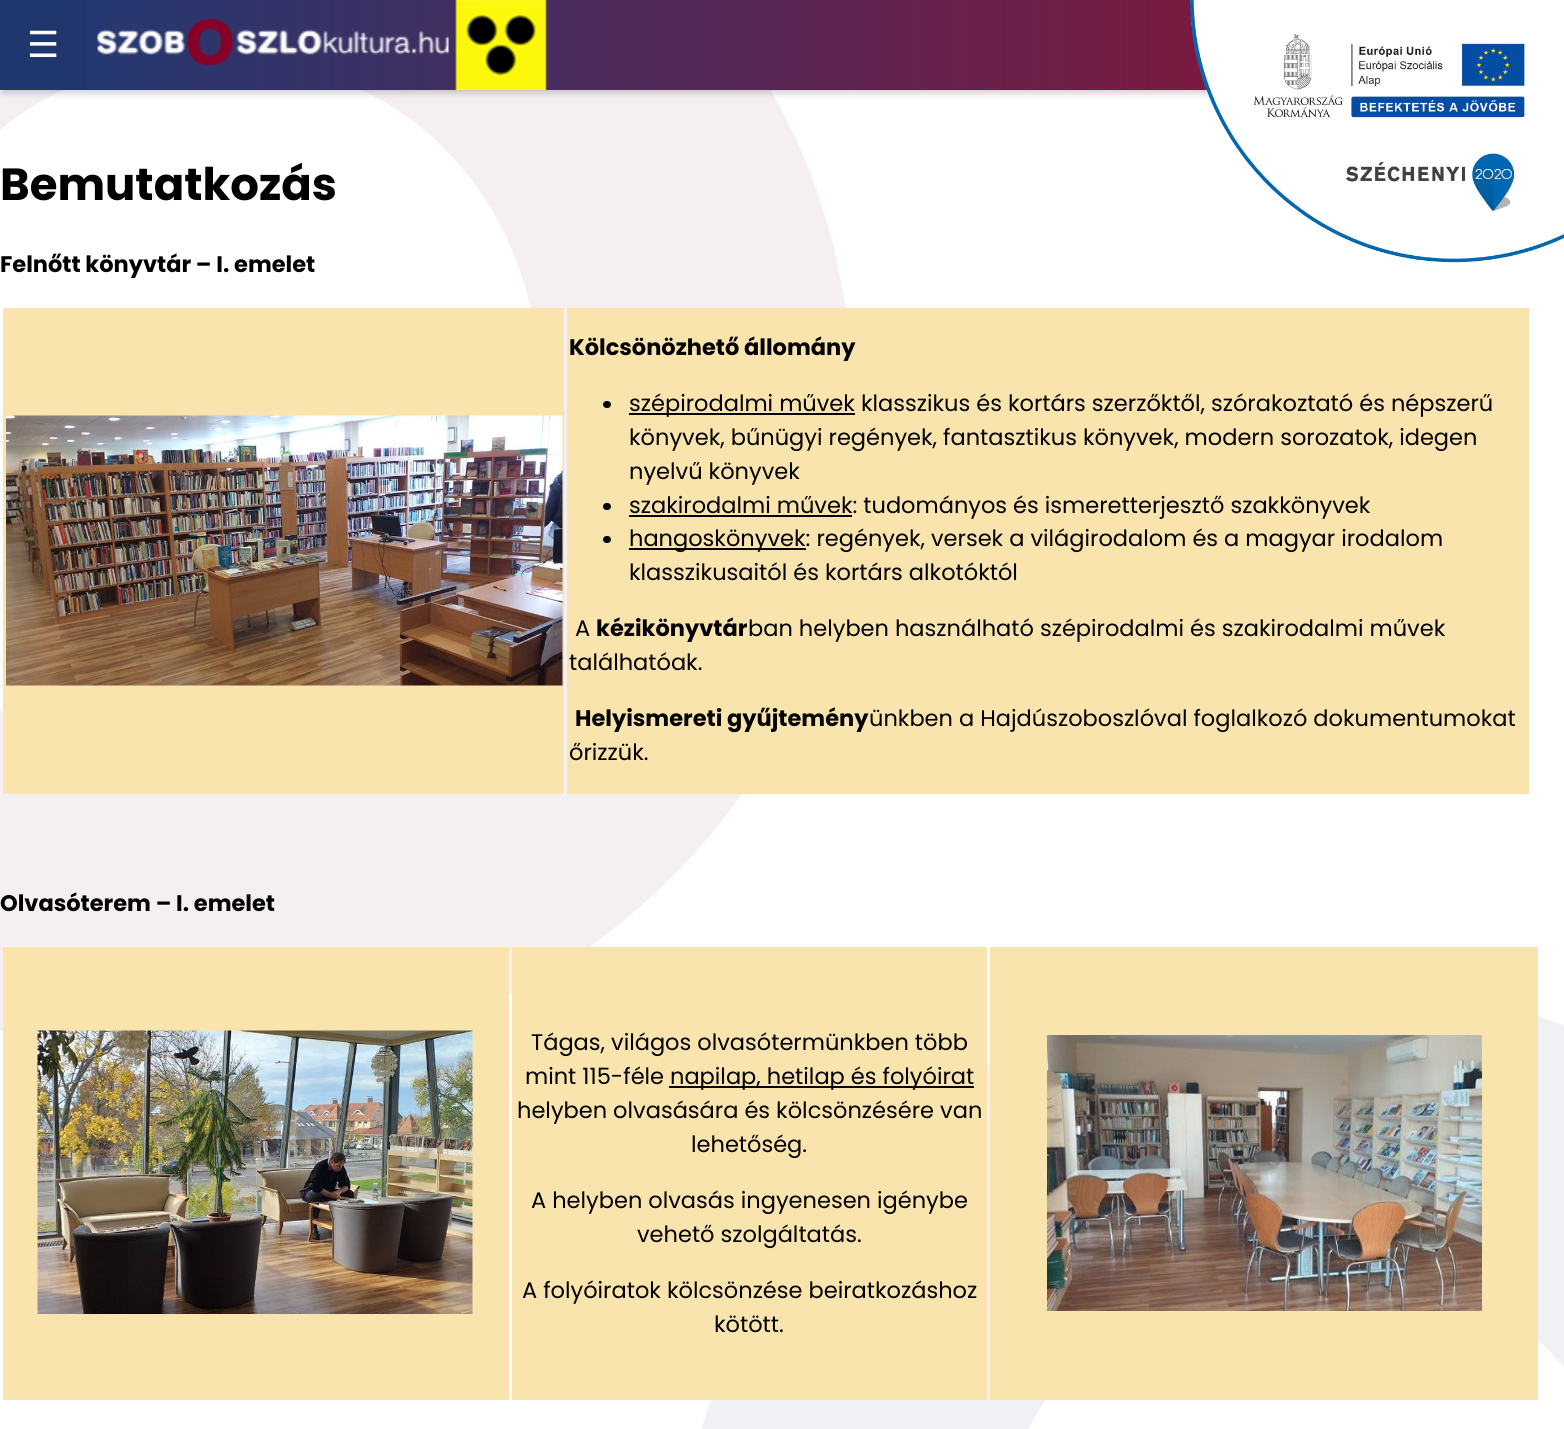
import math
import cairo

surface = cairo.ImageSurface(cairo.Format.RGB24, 1564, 1429)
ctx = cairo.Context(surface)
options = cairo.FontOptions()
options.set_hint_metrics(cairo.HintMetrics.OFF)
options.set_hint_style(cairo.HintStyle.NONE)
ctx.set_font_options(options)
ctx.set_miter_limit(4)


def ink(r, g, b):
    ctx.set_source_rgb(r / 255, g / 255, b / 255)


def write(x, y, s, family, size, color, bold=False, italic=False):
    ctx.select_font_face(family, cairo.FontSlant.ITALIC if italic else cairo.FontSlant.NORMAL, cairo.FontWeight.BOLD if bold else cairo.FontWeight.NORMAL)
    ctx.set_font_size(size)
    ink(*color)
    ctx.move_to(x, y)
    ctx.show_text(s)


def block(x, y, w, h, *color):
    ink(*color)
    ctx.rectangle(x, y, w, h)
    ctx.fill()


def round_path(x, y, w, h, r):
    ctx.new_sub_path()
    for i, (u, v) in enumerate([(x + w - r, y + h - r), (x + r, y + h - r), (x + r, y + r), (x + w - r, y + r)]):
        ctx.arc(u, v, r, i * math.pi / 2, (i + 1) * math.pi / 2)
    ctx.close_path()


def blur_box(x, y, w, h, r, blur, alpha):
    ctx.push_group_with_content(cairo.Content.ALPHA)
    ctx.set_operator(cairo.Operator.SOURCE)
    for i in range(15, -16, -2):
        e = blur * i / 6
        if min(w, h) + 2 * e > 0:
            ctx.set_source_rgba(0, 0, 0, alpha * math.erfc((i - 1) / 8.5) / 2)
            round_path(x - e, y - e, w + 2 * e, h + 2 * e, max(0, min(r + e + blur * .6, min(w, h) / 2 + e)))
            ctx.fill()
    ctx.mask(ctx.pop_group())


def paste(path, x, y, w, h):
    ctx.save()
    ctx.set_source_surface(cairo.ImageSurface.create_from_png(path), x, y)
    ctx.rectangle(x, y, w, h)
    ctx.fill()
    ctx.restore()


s1 = dict(family="DejaVu Sans", size=36, color=(255, 255, 255))
s2 = dict(family="Poppins", size=45, color=(0, 0, 0), bold=True)
s3 = dict(family="Poppins", size=22.5, color=(0, 0, 0), bold=True)
s4 = dict(family="Poppins", size=22.5, color=(0, 0, 0))

ink(255, 255, 255)
ctx.paint()
paste("pic1.png", 0, 90, 1564, 1339)
ink(0, 0, 0)
blur_box(3, 3, 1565, 90, 0, 4, 0.2)
gradient = cairo.LinearGradient(0, 45, 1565, 45)
gradient.add_color_stop_rgba(0, 0.118, 0.231, 0.459, 1)
gradient.add_color_stop_rgba(1, 0.584, 0.063, 0.188, 1)
ctx.set_source(gradient)
ctx.rectangle(0, 0, 1207, 90)
ctx.fill()
ctx.set_source_rgba(0, 0, 0, 0.05)
ctx.rectangle(0, 0, 87, 90)
ctx.fill()
write(27, 57, "☰", **s1)
paste("pic2.png", 97, 18, 352, 48)
paste("pic3.png", 455, 0, 92, 90)
paste("pic4.png", 1189, 0, 375, 263)
write(0, 200, "Bemutatkozás", **s2)
write(0, 272, "Felnőtt könyvtár – I. emelet", **s3)
block(3, 308, 561, 486, 250, 228, 173)
paste("pic5.png", 6, 415, 557, 271)
block(567, 308, 962, 486, 250, 228, 173)
write(569, 355, "Kölcsönözhető állomány", **s3)
round_path(603, 401, 8, 7, 3.5)
ctx.fill()
block(629, 413, 226, 2, 0, 0, 0)
write(629, 411, "szépirodalmi művek klasszikus és kortárs szerzőktől, szórakoztató és népszerű", **s4)
write(629, 445, "könyvek, bűnügyi regények, fantasztikus könyvek, modern sorozatok, idegen", **s4)
write(629, 479, "nyelvű könyvek", **s4)
round_path(603, 503, 8, 7, 3.5)
ctx.fill()
block(629, 515, 223, 2, 0, 0, 0)
write(629, 513, "szakirodalmi művek: tudományos és ismeretterjesztő szakkönyvek", **s4)
round_path(603, 536, 8, 7, 3.5)
ctx.fill()
block(629, 548, 177, 2, 0, 0, 0)
write(629, 546, "hangoskönyvek: regények, versek a világirodalom és a magyar irodalom", **s4)
write(629, 580, "klasszikusaitól és kortárs alkotóktól", **s4)
write(575, 636, "A", **s4)
write(596, 636, "kézikönyvtár", **s3)
write(748, 636, "ban helyben használható szépirodalmi és szakirodalmi művek", **s4)
write(569, 670, "találhatóak.", **s4)
write(575, 726, "Helyismereti gyűjtemény", **s3)
write(869, 726, "ünkben a Hajdúszoboszlóval foglalkozó dokumentumokat", **s4)
write(569, 760, "őrizzük.", **s4)
write(0, 911, "Olvasóterem – I. emelet", **s3)
block(3, 947, 506, 453, 250, 228, 173)
paste("pic6.png", 37, 1030, 436, 284)
block(512, 947, 475, 453, 250, 228, 173)
write(531, 1050, "Tágas, világos olvasótermünkben több", **s4)
write(525, 1084, "mint 115-féle", **s4)
block(669, 1086, 305, 2, 0, 0, 0)
write(670, 1084, "napilap, hetilap és folyóirat", **s4)
write(517, 1118, "helyben olvasására és kölcsönzésére van", **s4)
write(691, 1152, "lehetőség.", **s4)
write(531, 1208, "A helyben olvasás ingyenesen igénybe", **s4)
write(637, 1242, "vehető szolgáltatás.", **s4)
write(522, 1298, "A folyóiratok kölcsönzése beiratkozáshoz", **s4)
write(714, 1332, "kötött.", **s4)
block(990, 947, 548, 453, 250, 228, 173)
paste("pic7.png", 1047, 1035, 435, 276)
surface.write_to_png("screenshot.png")
